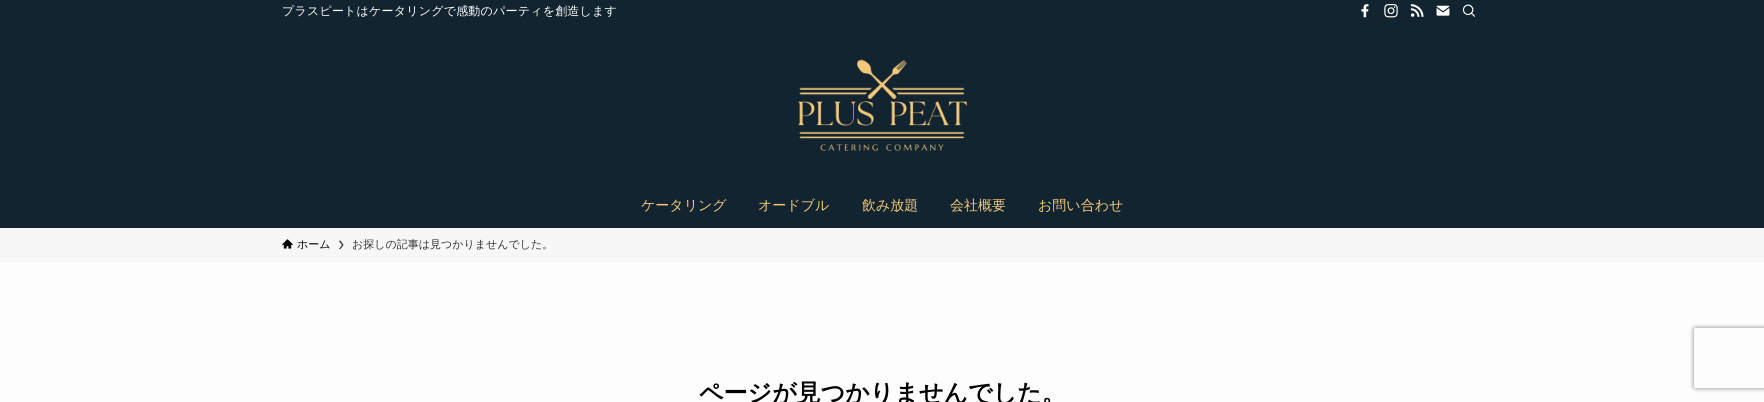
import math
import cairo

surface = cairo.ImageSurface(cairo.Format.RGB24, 1764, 402)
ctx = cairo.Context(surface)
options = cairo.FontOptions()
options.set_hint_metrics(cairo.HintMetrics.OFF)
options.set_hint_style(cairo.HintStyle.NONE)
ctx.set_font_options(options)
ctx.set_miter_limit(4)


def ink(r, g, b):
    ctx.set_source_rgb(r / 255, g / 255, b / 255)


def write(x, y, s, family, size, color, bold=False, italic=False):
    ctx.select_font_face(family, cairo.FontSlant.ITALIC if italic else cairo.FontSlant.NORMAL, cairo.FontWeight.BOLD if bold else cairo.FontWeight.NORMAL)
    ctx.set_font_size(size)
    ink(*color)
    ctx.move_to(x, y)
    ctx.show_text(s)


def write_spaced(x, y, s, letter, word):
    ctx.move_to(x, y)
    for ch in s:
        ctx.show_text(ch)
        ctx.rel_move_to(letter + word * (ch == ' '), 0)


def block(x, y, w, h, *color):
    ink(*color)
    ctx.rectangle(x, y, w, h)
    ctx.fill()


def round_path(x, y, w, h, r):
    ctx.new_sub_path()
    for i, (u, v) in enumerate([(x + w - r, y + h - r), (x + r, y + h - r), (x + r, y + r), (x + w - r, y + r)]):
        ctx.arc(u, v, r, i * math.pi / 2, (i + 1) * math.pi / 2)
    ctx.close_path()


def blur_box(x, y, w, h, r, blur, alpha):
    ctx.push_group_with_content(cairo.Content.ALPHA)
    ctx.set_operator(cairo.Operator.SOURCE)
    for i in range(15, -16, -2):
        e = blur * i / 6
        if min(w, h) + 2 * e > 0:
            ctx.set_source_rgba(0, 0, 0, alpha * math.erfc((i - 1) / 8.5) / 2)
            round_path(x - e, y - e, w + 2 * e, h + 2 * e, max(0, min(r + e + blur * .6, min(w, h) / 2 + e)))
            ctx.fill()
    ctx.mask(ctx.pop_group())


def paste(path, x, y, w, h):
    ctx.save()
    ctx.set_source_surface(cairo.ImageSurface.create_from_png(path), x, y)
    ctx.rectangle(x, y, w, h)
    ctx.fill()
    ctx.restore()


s1 = dict(family="WenQuanYi Zen Hei Medium", size=14, color=(244, 200, 122))
s2 = dict(family="WenQuanYi Zen Hei Medium", size=11, color=(0, 0, 0))
s3 = dict(family="WenQuanYi Zen Hei Medium", size=11, color=(49, 49, 49))
s4 = dict(family="WenQuanYi Zen Hei", size=24, color=(0, 0, 0), bold=True)

ink(253, 253, 253)
ctx.paint()
block(0, 0, 1764, 228, 17, 36, 48)
ctx.select_font_face("WenQuanYi Zen Hei Medium")
ctx.set_font_size(12)
ink(255, 255, 255)
write_spaced(282, 15, "プラスピートはケータリングで感動のパーティを創造します", 0.2, 0)
paste("pic1.png", 1361, 4, 8, 14)
paste("pic2.png", 1384, 4, 14, 14)
paste("pic3.png", 1410, 4, 14, 13)
paste("pic4.png", 1436, 5, 14, 11)
paste("pic5.png", 1462, 4, 14, 13)
paste("pic6.png", 798, 59, 169, 92)
write(641, 210, "ケータリング", **s1)
write(758, 210, "オードブル", **s1)
write(862, 210, "飲み放題", **s1)
write(950, 210, "会社概要", **s1)
write(1038, 210, "お問い合わせ", **s1)
block(0, 228, 1764, 34, 247, 247, 247)
paste("pic7.png", 282, 239, 11, 10)
write(297, 248, "ホーム", **s2)
ink(49, 49, 49)
ctx.new_path()
ctx.move_to(340.5, 240.5)
ctx.line_to(339, 241)
ctx.line_to(342, 245)
ctx.line_to(339, 249)
ctx.line_to(340.5, 249)
ctx.line_to(343.5, 245)
ctx.close_path()
ctx.fill()
write(352, 248, "お探しの記事は見つかりませんでした。", **s3)
write(699, 401, "ページが見つかりませんでした。", **s4)
ctx.save()
ctx.set_fill_rule(cairo.FillRule.EVEN_ODD)
ctx.new_path()
ctx.move_to(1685, 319)
ctx.line_to(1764, 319)
ctx.line_to(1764, 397)
ctx.line_to(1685, 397)
ctx.close_path()
ctx.move_to(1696, 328)
ctx.line_to(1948, 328)
ctx.curve_to(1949, 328, 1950, 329, 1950, 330)
ctx.line_to(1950, 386)
ctx.curve_to(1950, 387, 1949, 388, 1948, 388)
ctx.line_to(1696, 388)
ctx.curve_to(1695, 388, 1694, 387, 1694, 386)
ctx.line_to(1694, 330)
ctx.curve_to(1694, 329, 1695, 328, 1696, 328)
ctx.close_path()
ctx.clip()
ink(128, 128, 128)
blur_box(1694, 328, 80, 60, 2, 2.5, 1)
ctx.restore()
surface.write_to_png("screenshot.png")
